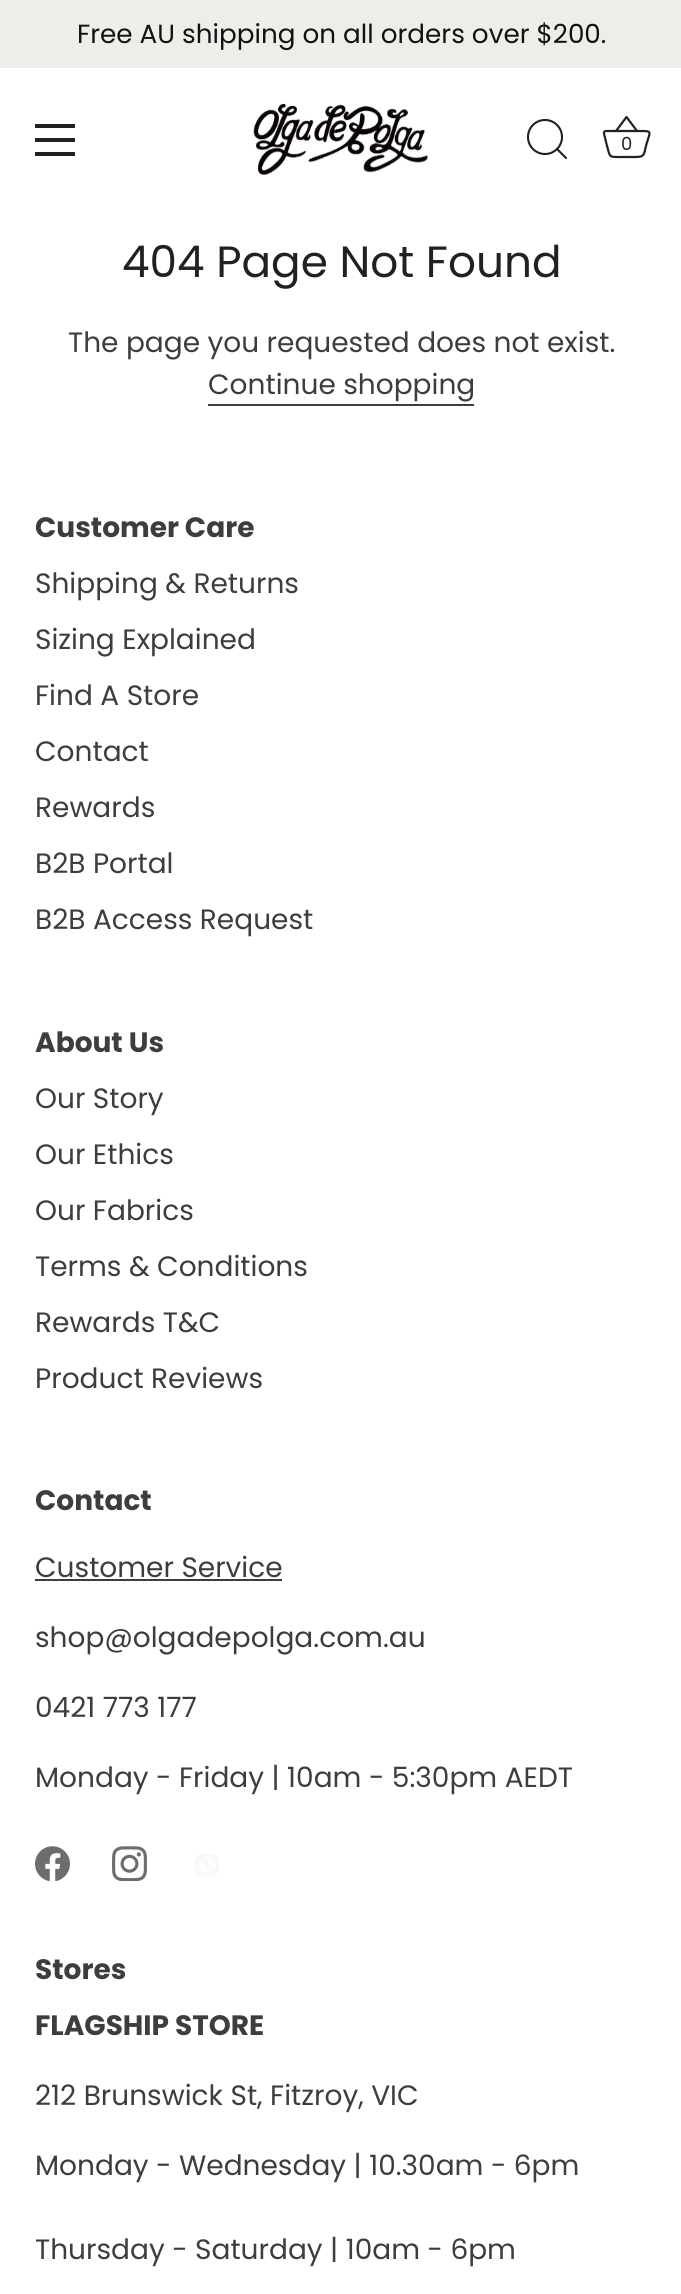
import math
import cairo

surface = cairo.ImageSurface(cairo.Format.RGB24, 681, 2294)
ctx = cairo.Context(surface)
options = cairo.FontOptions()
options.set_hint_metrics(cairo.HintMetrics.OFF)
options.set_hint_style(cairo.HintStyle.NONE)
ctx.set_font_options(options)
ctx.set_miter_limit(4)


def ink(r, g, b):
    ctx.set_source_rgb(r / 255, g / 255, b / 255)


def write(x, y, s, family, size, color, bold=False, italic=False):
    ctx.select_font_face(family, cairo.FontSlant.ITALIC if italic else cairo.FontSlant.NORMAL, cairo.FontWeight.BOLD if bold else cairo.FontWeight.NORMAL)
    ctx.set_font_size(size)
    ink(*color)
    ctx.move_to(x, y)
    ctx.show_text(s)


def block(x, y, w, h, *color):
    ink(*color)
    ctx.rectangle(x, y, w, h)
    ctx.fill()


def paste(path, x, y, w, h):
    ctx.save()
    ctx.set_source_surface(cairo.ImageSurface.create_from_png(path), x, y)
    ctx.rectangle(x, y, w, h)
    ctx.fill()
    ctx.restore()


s1 = dict(family="Poppins", size=26.25, color=(18, 18, 18))
s2 = dict(family="Poppins", size=18, color=(33, 33, 33))
s3 = dict(family="Poppins", size=43.75, color=(33, 33, 33))
s4 = dict(family="Poppins", size=28, color=(62, 60, 60))
s5 = dict(family="Poppins", size=28, color=(62, 60, 60), bold=True)

ink(255, 255, 255)
ctx.paint()
block(0, 0, 681, 68, 239, 237, 233)
write(77, 43, "Free AU shipping on all orders over $200.", **s1)
block(35, 124, 40, 4, 33, 33, 33)
block(35, 138, 40, 4, 33, 33, 33)
block(35, 152, 40, 4, 33, 33, 33)
paste("pic1.png", 253, 103, 175, 72)
ctx.arc(545, 137, 17, 0, 2 * math.pi)
ctx.set_line_width(2.1)
ctx.stroke()
ctx.new_path()
ctx.move_to(566, 158)
ctx.line_to(557, 149)
ctx.set_line_cap(cairo.LineCap.ROUND)
ctx.set_line_join(cairo.LineJoin.ROUND)
ctx.stroke()
ctx.new_path()
ctx.move_to(606, 131)
ctx.curve_to(602.5, 131, 604.5, 136, 605, 137.5)
ctx.line_to(606.5, 144)
ctx.curve_to(610.5, 158, 608, 157, 622.5, 157)
ctx.line_to(635, 157)
ctx.curve_to(645.5, 157, 643.5, 154.5, 646.5, 144)
ctx.curve_to(650, 131.5, 653, 131, 640, 131)
ctx.line_to(606, 131)
ctx.move_to(616, 131)
ctx.line_to(626.5, 117)
ctx.line_to(637, 131)
ctx.set_line_width(2.2)
ctx.set_line_cap(cairo.LineCap.BUTT)
ctx.stroke()
write(621, 150, "0", **s2)
write(122, 277, "404 Page Not Found", **s3)
write(68, 352, "The page you requested does not exist.", **s4)
write(208, 394, "Continue shopping", **s4)
block(208, 404, 266, 2, 62, 60, 60)
write(35, 537, "Customer Care", **s5)
write(35, 593, "Shipping & Returns", **s4)
write(35, 649, "Sizing Explained", **s4)
write(35, 705, "Find A Store", **s4)
write(35, 761, "Contact", **s4)
write(35, 817, "Rewards", **s4)
write(35, 873, "B2B Portal", **s4)
write(35, 929, "B2B Access Request", **s4)
write(35, 1052, "About Us", **s5)
write(35, 1108, "Our Story", **s4)
write(35, 1164, "Our Ethics", **s4)
write(35, 1220, "Our Fabrics", **s4)
write(35, 1276, "Terms & Conditions", **s4)
write(35, 1332, "Rewards T&C", **s4)
write(35, 1388, "Product Reviews", **s4)
write(35, 1510, "Contact", **s5)
write(35, 1577, "Customer Service", **s4)
block(35, 1579, 247, 2, 62, 60, 60)
write(35, 1647, "shop@olgadepolga.com.au", **s4)
write(35, 1717, "0421 773 177", **s4)
write(35, 1787, "Monday - Friday | 10am - 5:30pm AEDT", **s4)
paste("pic2.png", 35, 1846, 35, 35)
paste("pic3.png", 112, 1846, 35, 35)
paste("pic4.png", 195, 1853, 24, 24)
write(35, 1979, "Stores", **s5)
write(35, 2035, "FLAGSHIP STORE", **s5)
write(35, 2105, "212 Brunswick St, Fitzroy, VIC", **s4)
write(35, 2175, "Monday - Wednesday | 10.30am - 6pm", **s4)
write(35, 2259, "Thursday - Saturday | 10am - 6pm", **s4)
surface.write_to_png("screenshot.png")
